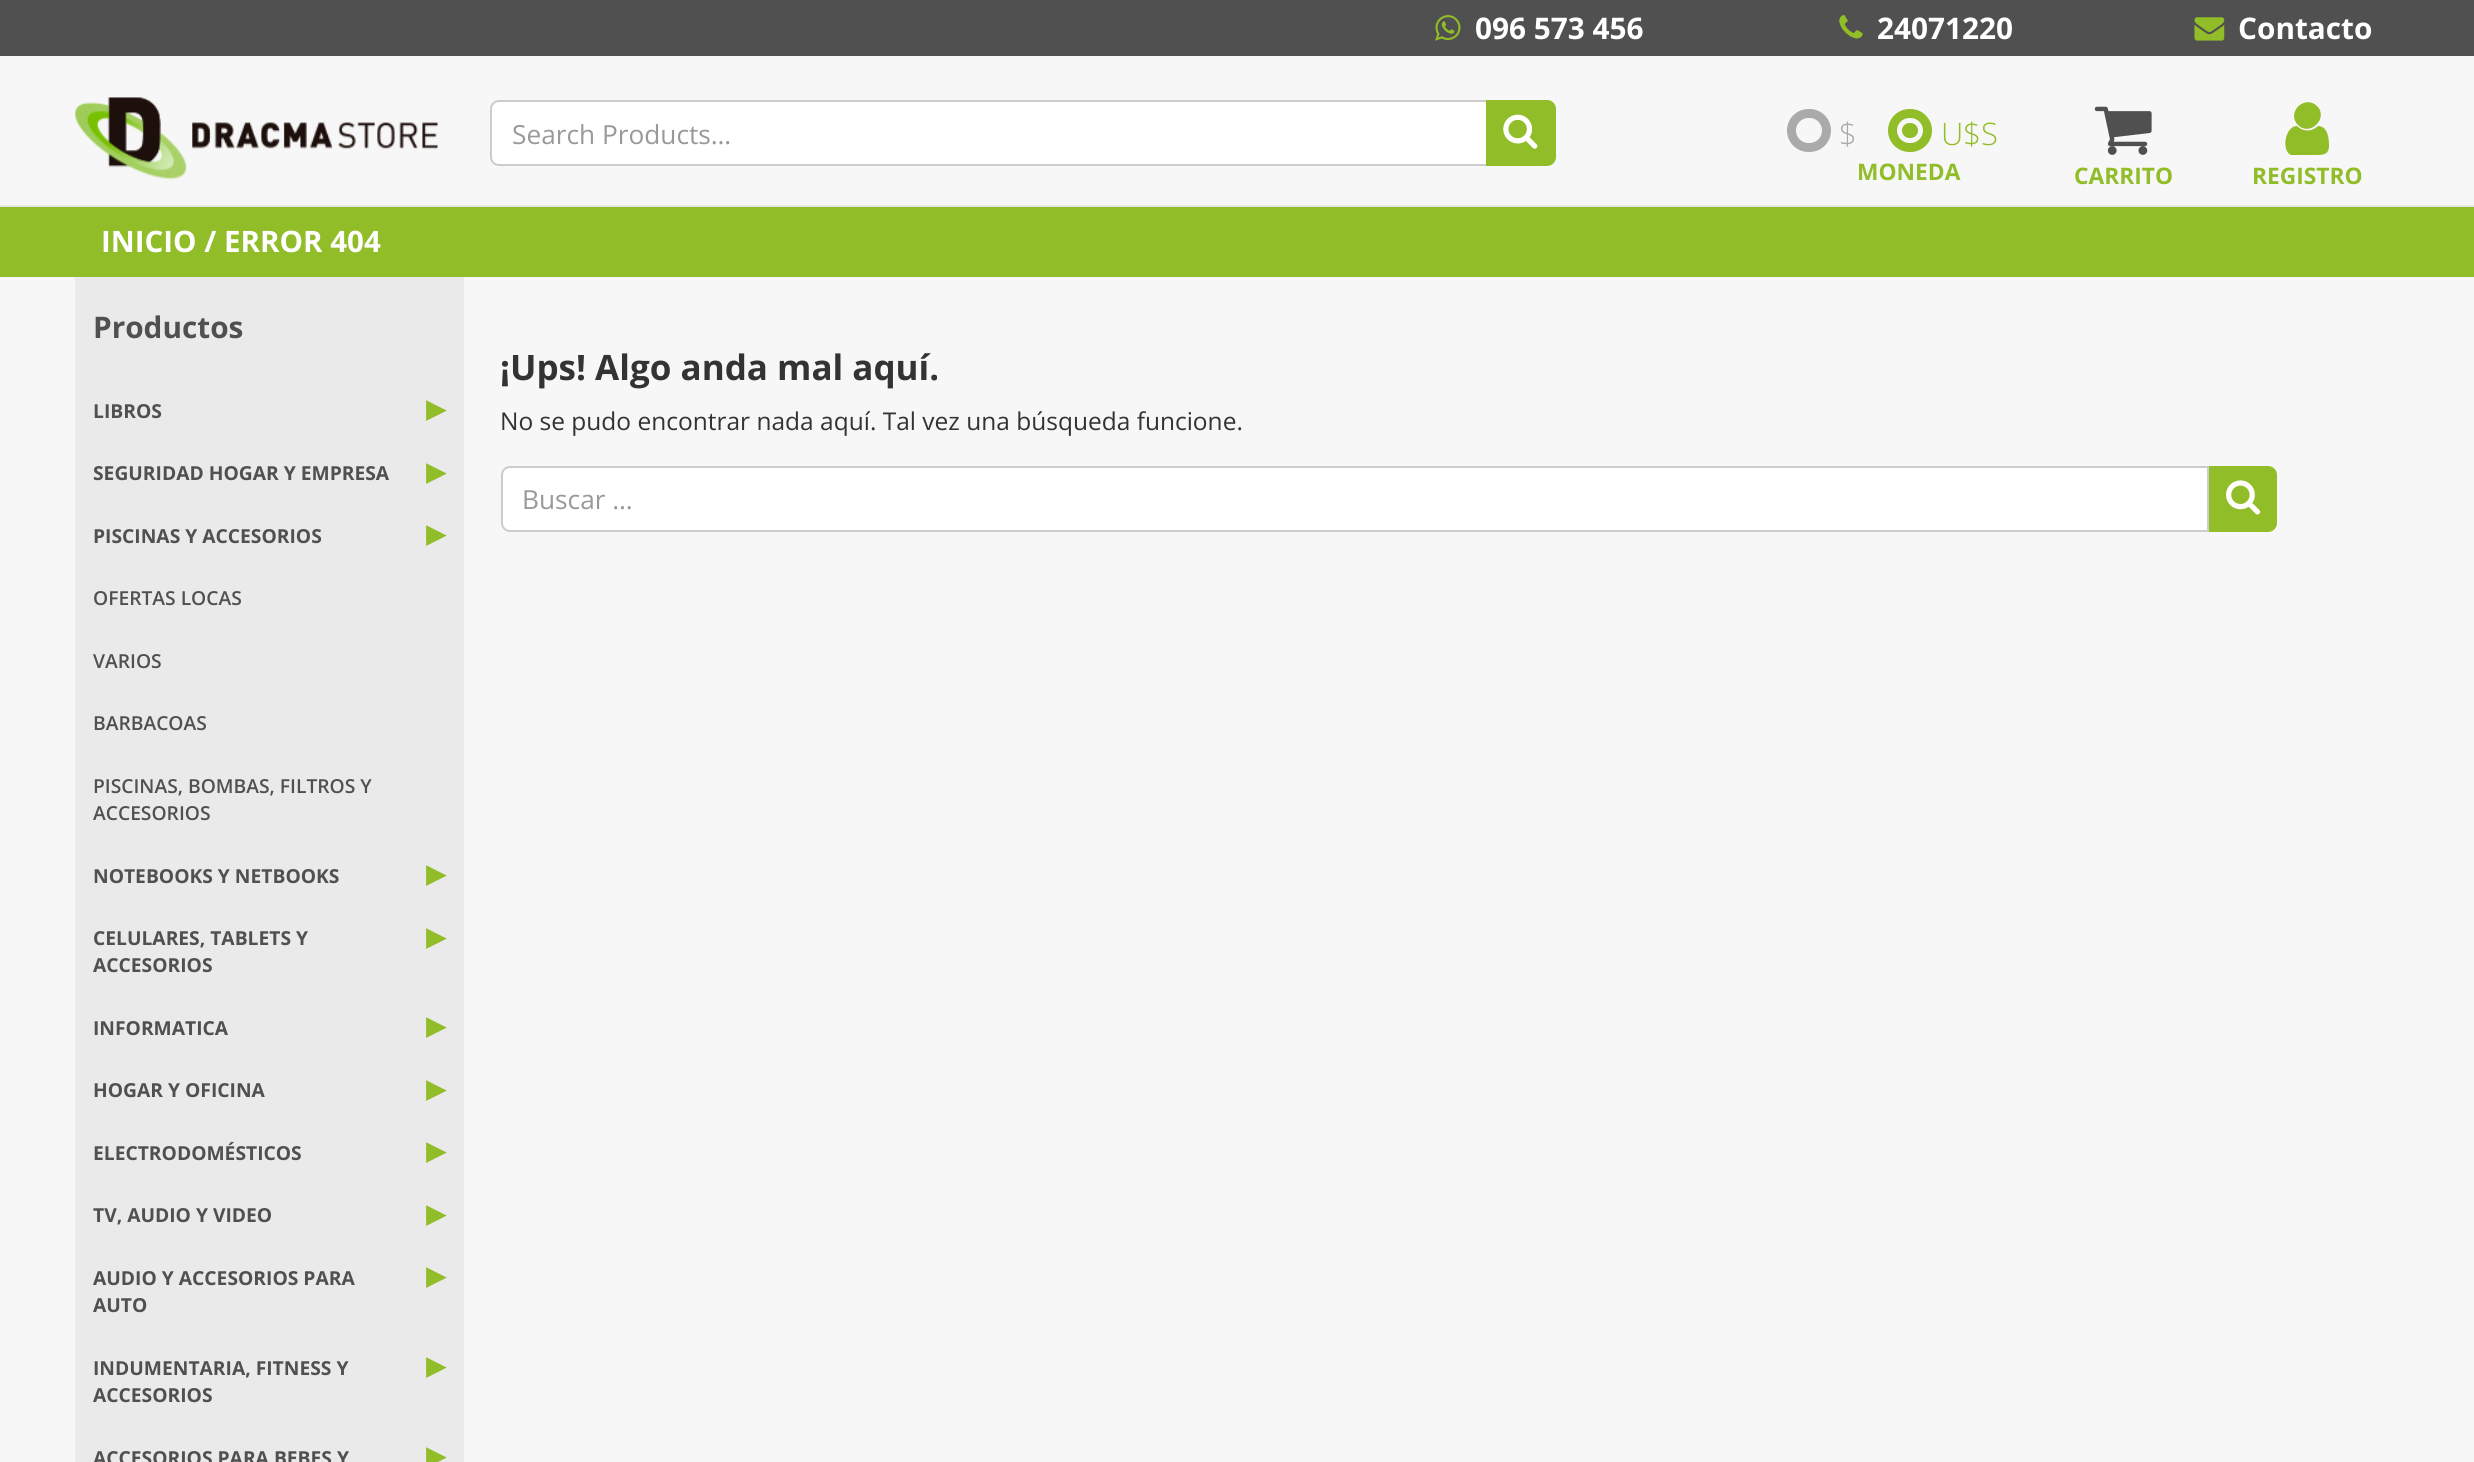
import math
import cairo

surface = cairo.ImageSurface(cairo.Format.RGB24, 2474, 1462)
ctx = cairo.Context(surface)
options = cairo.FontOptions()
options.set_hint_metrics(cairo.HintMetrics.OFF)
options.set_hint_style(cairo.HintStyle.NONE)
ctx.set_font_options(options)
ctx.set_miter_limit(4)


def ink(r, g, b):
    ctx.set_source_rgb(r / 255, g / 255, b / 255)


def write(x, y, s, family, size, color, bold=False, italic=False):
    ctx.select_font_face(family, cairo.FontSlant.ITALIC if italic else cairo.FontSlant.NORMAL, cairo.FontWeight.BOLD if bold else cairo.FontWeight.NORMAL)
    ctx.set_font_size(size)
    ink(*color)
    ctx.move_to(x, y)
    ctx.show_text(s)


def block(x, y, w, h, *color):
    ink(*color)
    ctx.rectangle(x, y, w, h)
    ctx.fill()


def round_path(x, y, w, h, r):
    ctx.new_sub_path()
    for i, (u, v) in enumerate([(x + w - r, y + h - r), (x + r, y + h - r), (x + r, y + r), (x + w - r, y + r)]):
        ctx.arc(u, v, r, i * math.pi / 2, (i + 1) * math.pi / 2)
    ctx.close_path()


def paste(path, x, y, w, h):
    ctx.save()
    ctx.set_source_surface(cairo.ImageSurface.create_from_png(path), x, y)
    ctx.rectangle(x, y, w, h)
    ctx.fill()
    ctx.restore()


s1 = dict(family="Open Sans", size=29.75, color=(255, 255, 255), bold=True)
s2 = dict(family="Open Sans", size=26.25, color=(153, 153, 153))
s3 = dict(family="Open Sans Light", size=31, color=(170, 170, 170))
s4 = dict(family="Open Sans Light", size=31, color=(145, 189, 40))
s5 = dict(family="Open Sans", size=22.75, color=(145, 189, 40), bold=True)
s6 = dict(family="Open Sans", size=29.5, color=(255, 255, 255), bold=True)
s7 = dict(family="Open Sans", size=29.75, color=(80, 80, 80), bold=True)
s8 = dict(family="Open Sans", size=19.25, color=(80, 80, 80), bold=True)
s9 = dict(family="DejaVu Sans", size=38, color=(145, 189, 40), bold=True)
s10 = dict(family="Open Sans SemiBold", size=19.25, color=(80, 80, 80))
s11 = dict(family="Open Sans", size=35, color=(51, 51, 51), bold=True)
s12 = dict(family="Open Sans", size=24.5, color=(51, 51, 51))

ink(247, 247, 247)
ctx.paint()
block(0, 0, 2474, 56, 80, 80, 80)
paste("pic1.png", 1435, 15, 26, 26)
write(1475, 39, "096 573 456", **s1)
paste("pic2.png", 1839, 15, 24, 24)
write(1877, 39, "24071220", **s1)
paste("pic3.png", 2194, 17, 31, 24)
write(2238, 39, "Contacto", **s1)
block(0, 205, 2474, 2, 230, 230, 230)
paste("pic4.png", 75, 97, 363, 83)
ink(255, 255, 255)
ctx.new_path()
ctx.move_to(499, 101)
ctx.line_to(1487, 101)
ctx.line_to(1487, 165)
ctx.line_to(499, 165)
ctx.curve_to(494.5, 165, 491, 161.5, 491, 157)
ctx.line_to(491, 109)
ctx.curve_to(491, 104.5, 494.5, 101, 499, 101)
ctx.close_path()
ctx.fill_preserve()
ink(204, 204, 204)
ctx.stroke()
write(512, 144, "Search Products…", **s2)
ink(145, 189, 40)
ctx.new_path()
ctx.move_to(1486, 100)
ctx.line_to(1547, 100)
ctx.curve_to(1552, 100, 1556, 104, 1556, 109)
ctx.line_to(1556, 157)
ctx.curve_to(1556, 162, 1552, 166, 1547, 166)
ctx.line_to(1486, 166)
ctx.close_path()
ctx.fill()
paste("pic5.png", 1503, 114, 35, 35)
round_path(1791.5, 113.5, 35, 34, 17)
ink(170, 170, 170)
ctx.set_line_width(9)
ctx.stroke()
write(1839, 145, "$", **s3)
round_path(1892.5, 113.5, 35, 34, 17)
ink(145, 189, 40)
ctx.stroke()
round_path(1902, 123, 16, 15, 7.5)
ctx.fill()
write(1941, 145, "U$S", **s4)
write(1857, 180, "MONEDA", **s5)
paste("pic6.png", 2094, 106, 58, 49)
write(2074, 184, "CARRITO", **s5)
ctx.new_path()
ctx.move_to(2329, 146)
ctx.curve_to(2329, 154, 2324, 155, 2317, 155)
ctx.line_to(2291, 155)
ctx.curve_to(2281, 151, 2285, 126, 2297, 126)
ctx.curve_to(2303, 132, 2312, 132, 2318, 126)
ctx.curve_to(2328, 126, 2329, 139, 2329, 146)
ctx.close_path()
ctx.move_to(2317, 106)
ctx.curve_to(2329, 118, 2310, 137, 2298, 125)
ctx.curve_to(2286, 113, 2304, 94, 2317, 106)
ctx.close_path()
ctx.fill()
write(2252, 184, "REGISTRO", **s5)
block(0, 207, 2474, 70, 145, 189, 40)
write(101, 252, "INICIO / ERROR 404", **s6)
block(75, 277, 389, 1185, 234, 234, 234)
write(93, 338, "Productos", **s7)
write(93, 418, "LIBROS", **s8)
write(426, 421, "▸", **s9)
write(93, 480, "SEGURIDAD HOGAR Y EMPRESA", **s8)
write(426, 484, "▸", **s9)
write(93, 543, "PISCINAS Y ACCESORIOS", **s8)
write(426, 546, "▸", **s9)
write(93, 605, "OFERTAS LOCAS", **s10)
write(93, 668, "VARIOS", **s10)
write(93, 730, "BARBACOAS", **s10)
write(93, 793, "PISCINAS, BOMBAS, FILTROS Y", **s10)
write(93, 820, "ACCESORIOS", **s10)
write(93, 883, "NOTEBOOKS Y NETBOOKS", **s8)
write(426, 886, "▸", **s9)
write(93, 945, "CELULARES, TABLETS Y", **s8)
write(426, 949, "▸", **s9)
write(93, 972, "ACCESORIOS", **s8)
write(93, 1035, "INFORMATICA", **s8)
write(426, 1038, "▸", **s9)
write(93, 1097, "HOGAR Y OFICINA", **s8)
write(426, 1101, "▸", **s9)
write(93, 1160, "ELECTRODOMÉSTICOS", **s8)
write(426, 1163, "▸", **s9)
write(93, 1222, "TV, AUDIO Y VIDEO", **s8)
write(426, 1226, "▸", **s9)
write(93, 1285, "AUDIO Y ACCESORIOS PARA", **s8)
write(426, 1288, "▸", **s9)
write(93, 1312, "AUTO", **s8)
write(93, 1375, "INDUMENTARIA, FITNESS Y", **s8)
write(426, 1378, "▸", **s9)
write(93, 1402, "ACCESORIOS", **s8)
write(93, 1465, "ACCESORIOS PARA BEBES Y", **s8)
write(426, 1468, "▸", **s9)
write(500, 380, "¡Ups! Algo anda mal aquí.", **s11)
write(500, 430, "No se pudo encontrar nada aquí. Tal vez una búsqueda funcione.", **s12)
ink(255, 255, 255)
ctx.new_path()
ctx.move_to(510, 467)
ctx.line_to(2208, 467)
ctx.line_to(2208, 531)
ctx.line_to(510, 531)
ctx.curve_to(505.5, 531, 502, 527.5, 502, 523)
ctx.line_to(502, 475)
ctx.curve_to(502, 470.5, 505.5, 467, 510, 467)
ctx.close_path()
ctx.fill_preserve()
ink(204, 204, 204)
ctx.set_line_width(2)
ctx.stroke()
write(522, 509, "Buscar …", **s2)
ink(145, 189, 40)
ctx.new_path()
ctx.move_to(2209, 466)
ctx.line_to(2268, 466)
ctx.curve_to(2273, 466, 2277, 470, 2277, 475)
ctx.line_to(2277, 523)
ctx.curve_to(2277, 528, 2273, 532, 2268, 532)
ctx.line_to(2209, 532)
ctx.close_path()
ctx.fill()
paste("pic7.png", 2226, 480, 35, 35)
surface.write_to_png("screenshot.png")
